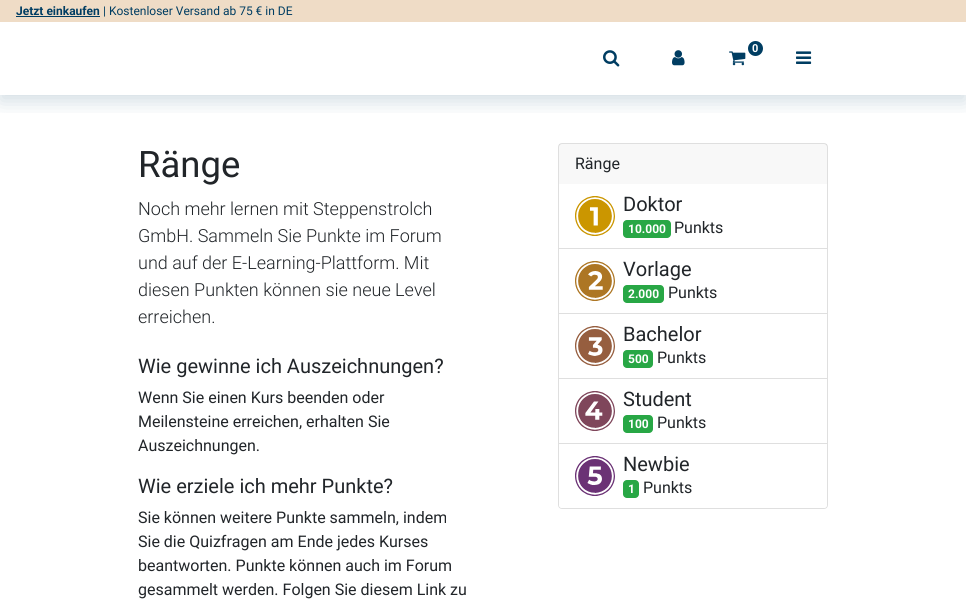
import math
import cairo

surface = cairo.ImageSurface(cairo.Format.RGB24, 966, 606)
ctx = cairo.Context(surface)
options = cairo.FontOptions()
options.set_hint_metrics(cairo.HintMetrics.OFF)
options.set_hint_style(cairo.HintStyle.NONE)
ctx.set_font_options(options)
ctx.set_miter_limit(4)


def ink(r, g, b):
    ctx.set_source_rgb(r / 255, g / 255, b / 255)


def write(x, y, s, family, size, color, bold=False, italic=False):
    ctx.select_font_face(family, cairo.FontSlant.ITALIC if italic else cairo.FontSlant.NORMAL, cairo.FontWeight.BOLD if bold else cairo.FontWeight.NORMAL)
    ctx.set_font_size(size)
    ink(*color)
    ctx.move_to(x, y)
    ctx.show_text(s)


def block(x, y, w, h, *color):
    ink(*color)
    ctx.rectangle(x, y, w, h)
    ctx.fill()


def round_path(x, y, w, h, r):
    ctx.new_sub_path()
    for i, (u, v) in enumerate([(x + w - r, y + h - r), (x + r, y + h - r), (x + r, y + r), (x + w - r, y + r)]):
        ctx.arc(u, v, r, i * math.pi / 2, (i + 1) * math.pi / 2)
    ctx.close_path()


def blur_box(x, y, w, h, r, blur, alpha):
    ctx.push_group_with_content(cairo.Content.ALPHA)
    ctx.set_operator(cairo.Operator.SOURCE)
    for i in range(15, -16, -2):
        e = blur * i / 6
        if min(w, h) + 2 * e > 0:
            ctx.set_source_rgba(0, 0, 0, alpha * math.erfc((i - 1) / 8.5) / 2)
            round_path(x - e, y - e, w + 2 * e, h + 2 * e, max(0, min(r + e + blur * .6, min(w, h) / 2 + e)))
            ctx.fill()
    ctx.mask(ctx.pop_group())


def paste(path, x, y, w, h):
    ctx.save()
    ctx.set_source_surface(cairo.ImageSurface.create_from_png(path), x, y)
    ctx.rectangle(x, y, w, h)
    ctx.fill()
    ctx.restore()


s1 = dict(family="Roboto", size=12, color=(0, 61, 98), bold=True)
s2 = dict(family="Roboto", size=12, color=(0, 61, 98))
s3 = dict(family="Roboto", size=11, color=(255, 255, 255), bold=True)
s4 = dict(family="Roboto", size=36.5, color=(33, 37, 41))
s5 = dict(family="Roboto Light", size=18, color=(33, 37, 41))
s6 = dict(family="Roboto", size=20, color=(33, 37, 41))
s7 = dict(family="Roboto", size=16, color=(33, 37, 41))
s8 = dict(family="Roboto", size=12, color=(255, 255, 255), bold=True)

ink(255, 255, 255)
ctx.paint()
ctx.save()
ctx.rectangle(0, 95, 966, 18)
ctx.clip()
ink(0, 61, 98)
blur_box(0, 6, 966, 95, 0, 10, 0.18)
ctx.restore()
block(0, 0, 966, 22, 239, 220, 198)
write(16, 15, "Jetzt einkaufen", **s1)
block(16, 16, 84, 1, 0, 61, 98)
write(103, 15, "| Kostenloser Versand ab 75 € in DE", **s2)
ctx.new_path()
ctx.arc(755.5, 48.5, 7.5, 0, 2 * math.pi)
ctx.fill()
write(752, 52, "0", **s3)
paste("pic1.png", 729, 51, 17, 15)
paste("pic2.png", 603, 50, 17, 17)
paste("pic3.png", 672, 50, 13, 16)
paste("pic4.png", 796, 51, 16, 13)
write(138, 177, "Ränge", **s4)
write(138, 215, "Noch mehr lernen mit Steppenstrolch", **s5)
write(138, 242, "GmbH. Sammeln Sie Punkte im Forum", **s5)
write(138, 269, "und auf der E-Learning-Plattform. Mit", **s5)
write(138, 296, "diesen Punkten können sie neue Level", **s5)
write(138, 323, "erreichen.", **s5)
write(138, 373, "Wie gewinne ich Auszeichnungen?", **s6)
write(138, 403, "Wenn Sie einen Kurs beenden oder", **s7)
write(138, 427, "Meilensteine erreichen, erhalten Sie", **s7)
write(138, 451, "Auszeichnungen.", **s7)
write(138, 493, "Wie erziele ich mehr Punkte?", **s6)
write(138, 523, "Sie können weitere Punkte sammeln, indem", **s7)
write(138, 547, "Sie die Quizfragen am Ende jedes Kurses", **s7)
write(138, 571, "beantworten. Punkte können auch im Forum", **s7)
write(138, 595, "gesammelt werden. Folgen Sie diesem Link zu", **s7)
round_path(558.5, 143.5, 269, 365, 3.5)
ink(223, 223, 223)
ctx.set_line_width(1)
ctx.stroke()
ctx.set_source_rgba(0, 0, 0, 0.03)
ctx.rectangle(559, 144, 268, 40)
ctx.fill()
write(575, 169, "Ränge", **s7)
block(559, 248, 268, 1, 223, 223, 223)
paste("pic5.png", 575, 196, 40, 40)
write(623, 211, "Doktor", **s6)
ink(40, 167, 69)
round_path(623, 220, 48, 18, 4)
ctx.fill()
write(628, 233, "10.000", **s8)
write(674, 233, "Punkts", **s7)
block(559, 313, 268, 1, 223, 223, 223)
paste("pic6.png", 575, 261, 40, 40)
write(623, 276, "Vorlage", **s6)
ink(40, 167, 69)
round_path(623, 285, 41, 18, 4)
ctx.fill()
write(628, 298, "2.000", **s8)
write(668, 298, "Punkts", **s7)
block(559, 378, 268, 1, 223, 223, 223)
paste("pic7.png", 575, 326, 40, 40)
write(623, 341, "Bachelor", **s6)
ink(40, 167, 69)
round_path(623, 350, 30, 18, 4)
ctx.fill()
write(628, 363, "500", **s8)
write(657, 363, "Punkts", **s7)
block(559, 443, 268, 1, 223, 223, 223)
paste("pic8.png", 575, 391, 40, 40)
write(623, 406, "Student", **s6)
ink(40, 167, 69)
round_path(623, 415, 30, 18, 4)
ctx.fill()
write(628, 428, "100", **s8)
write(657, 428, "Punkts", **s7)
ink(255, 255, 255)
ctx.new_path()
ctx.move_to(559, 444)
ctx.line_to(827, 444)
ctx.line_to(827, 505)
ctx.curve_to(827, 506.5, 825.5, 508, 824, 508)
ctx.line_to(562, 508)
ctx.curve_to(560.5, 508, 559, 506.5, 559, 505)
ctx.close_path()
ctx.fill()
paste("pic9.png", 575, 456, 40, 40)
write(623, 471, "Newbie", **s6)
ink(40, 167, 69)
round_path(623, 480, 16, 18, 4)
ctx.fill()
write(628, 493, "1", **s8)
write(643, 493, "Punkts", **s7)
surface.write_to_png("screenshot.png")
